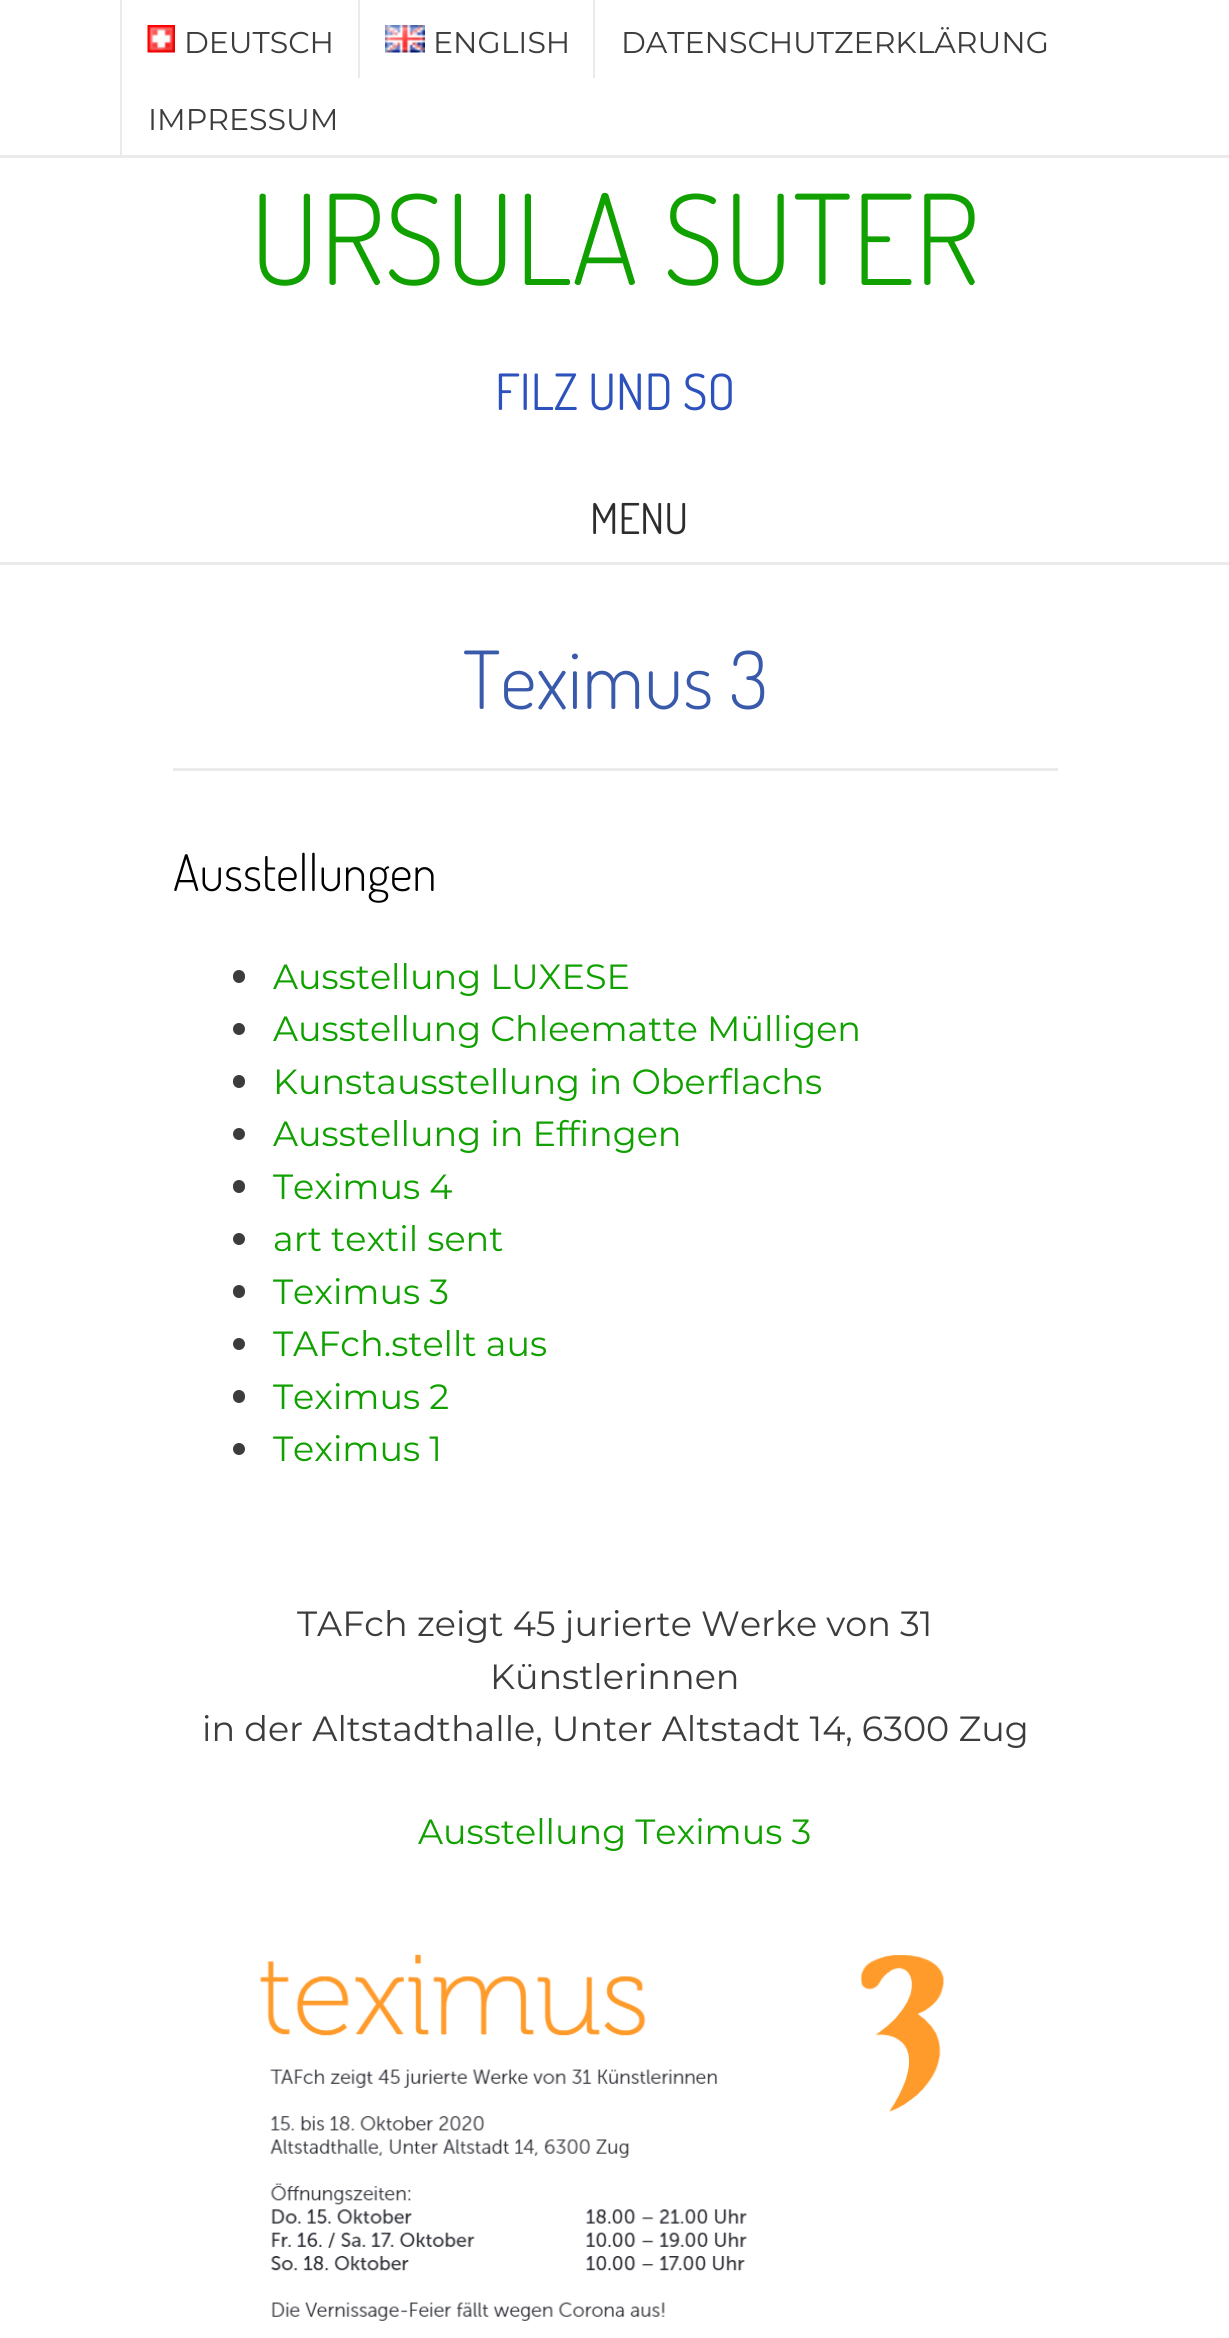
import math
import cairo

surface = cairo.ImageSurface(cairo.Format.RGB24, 1229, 2338)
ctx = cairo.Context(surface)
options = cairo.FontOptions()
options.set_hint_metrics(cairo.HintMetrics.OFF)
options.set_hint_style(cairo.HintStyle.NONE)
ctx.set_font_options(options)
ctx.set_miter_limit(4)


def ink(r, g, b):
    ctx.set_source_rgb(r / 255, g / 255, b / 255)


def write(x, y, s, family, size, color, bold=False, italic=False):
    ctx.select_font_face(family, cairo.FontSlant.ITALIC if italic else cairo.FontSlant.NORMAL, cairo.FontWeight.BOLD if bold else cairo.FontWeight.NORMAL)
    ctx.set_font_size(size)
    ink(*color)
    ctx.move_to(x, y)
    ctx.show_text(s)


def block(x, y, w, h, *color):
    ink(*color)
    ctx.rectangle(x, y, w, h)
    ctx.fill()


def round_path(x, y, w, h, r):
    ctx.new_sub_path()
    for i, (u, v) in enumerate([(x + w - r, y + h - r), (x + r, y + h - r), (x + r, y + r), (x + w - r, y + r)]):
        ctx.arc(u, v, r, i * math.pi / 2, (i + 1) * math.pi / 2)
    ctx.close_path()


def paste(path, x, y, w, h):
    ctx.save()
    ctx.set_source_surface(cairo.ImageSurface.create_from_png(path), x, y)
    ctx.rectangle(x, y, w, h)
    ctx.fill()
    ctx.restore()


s1 = dict(family="Montserrat", size=30, color=(60, 60, 60))
s2 = dict(family="Dosis Light", size=125, color=(16, 160, 0))
s3 = dict(family="Dosis", size=50, color=(45, 82, 190))
s4 = dict(family="Dosis", size=42.5, color=(45, 45, 45))
s5 = dict(family="Dosis Light", size=80, color=(57, 89, 171))
s6 = dict(family="Dosis Light", size=50, color=(0, 0, 0))
s7 = dict(family="Montserrat", size=35, color=(16, 160, 0))
s8 = dict(family="Montserrat", size=35, color=(60, 60, 60))

ink(255, 255, 255)
ctx.paint()
block(0, 155, 1229, 3, 235, 235, 235)
ctx.new_path()
ctx.move_to(120, 0)
ctx.line_to(120, 78)
ctx.line_to(358, 78)
ctx.line_to(122, 78)
ctx.line_to(122, 0)
ctx.close_path()
ctx.fill()
paste("pic1.png", 147, 25, 28, 28)
write(184, 53, "DEUTSCH", **s1)
ink(235, 235, 235)
ctx.new_path()
ctx.move_to(358, 0)
ctx.line_to(358, 78)
ctx.line_to(593, 78)
ctx.line_to(360, 78)
ctx.line_to(360, 0)
ctx.close_path()
ctx.fill()
paste("pic2.png", 385, 25, 40, 28)
write(433, 53, "ENGLISH", **s1)
ink(235, 235, 235)
ctx.new_path()
ctx.move_to(593, 0)
ctx.line_to(593, 78)
ctx.line_to(1070, 78)
ctx.line_to(595, 78)
ctx.line_to(595, 0)
ctx.close_path()
ctx.fill()
write(621, 53, "DATENSCHUTZERKLÄRUNG", **s1)
block(120, 78, 2, 77, 235, 235, 235)
write(148, 130, "IMPRESSUM", **s1)
block(0, 562, 1229, 3, 235, 235, 235)
write(250, 285, "URSULA SUTER", **s2)
write(495, 410, "FILZ UND SO", **s3)
write(590, 534, "MENU", **s4)
block(173, 768, 885, 3, 235, 235, 235)
write(463, 709, "Teximus 3", **s5)
write(173, 891, "Ausstellungen", **s6)
ink(60, 60, 60)
round_path(233, 970, 12, 13, 6)
ctx.fill()
write(273, 989, "Ausstellung LUXESE", **s7)
ink(60, 60, 60)
ctx.new_path()
ctx.arc(239, 1029, 6, 0, 2 * math.pi)
ctx.fill()
write(273, 1041, "Ausstellung Chleematte Mülligen", **s7)
ink(60, 60, 60)
round_path(233, 1075, 12, 13, 6)
ctx.fill()
write(273, 1094, "Kunstausstellung in Oberflachs", **s7)
ink(60, 60, 60)
ctx.new_path()
ctx.arc(239, 1134, 6, 0, 2 * math.pi)
ctx.fill()
write(273, 1146, "Ausstellung in Effingen", **s7)
ink(60, 60, 60)
round_path(233, 1180, 12, 13, 6)
ctx.fill()
write(273, 1199, "Teximus 4", **s7)
ink(60, 60, 60)
ctx.new_path()
ctx.arc(239, 1239, 6, 0, 2 * math.pi)
ctx.fill()
write(273, 1251, "art textil sent", **s7)
ink(60, 60, 60)
round_path(233, 1285, 12, 13, 6)
ctx.fill()
write(273, 1304, "Teximus 3", **s7)
ink(60, 60, 60)
ctx.new_path()
ctx.arc(239, 1344, 6, 0, 2 * math.pi)
ctx.fill()
write(273, 1356, "TAFch.stellt aus", **s7)
ink(60, 60, 60)
round_path(233, 1390, 12, 13, 6)
ctx.fill()
write(273, 1409, "Teximus 2", **s7)
ink(60, 60, 60)
ctx.new_path()
ctx.arc(239, 1449, 6, 0, 2 * math.pi)
ctx.fill()
write(273, 1461, "Teximus 1", **s7)
write(297, 1636, "TAFch zeigt 45 jurierte Werke von 31", **s8)
write(490, 1689, "Künstlerinnen", **s8)
write(202, 1741, "in der Altstadthalle, Unter Altstadt 14, 6300 Zug", **s8)
write(418, 1844, "Ausstellung Teximus 3", **s7)
paste("pic3.png", 260, 1954, 684, 367)
surface.write_to_png("screenshot.png")
